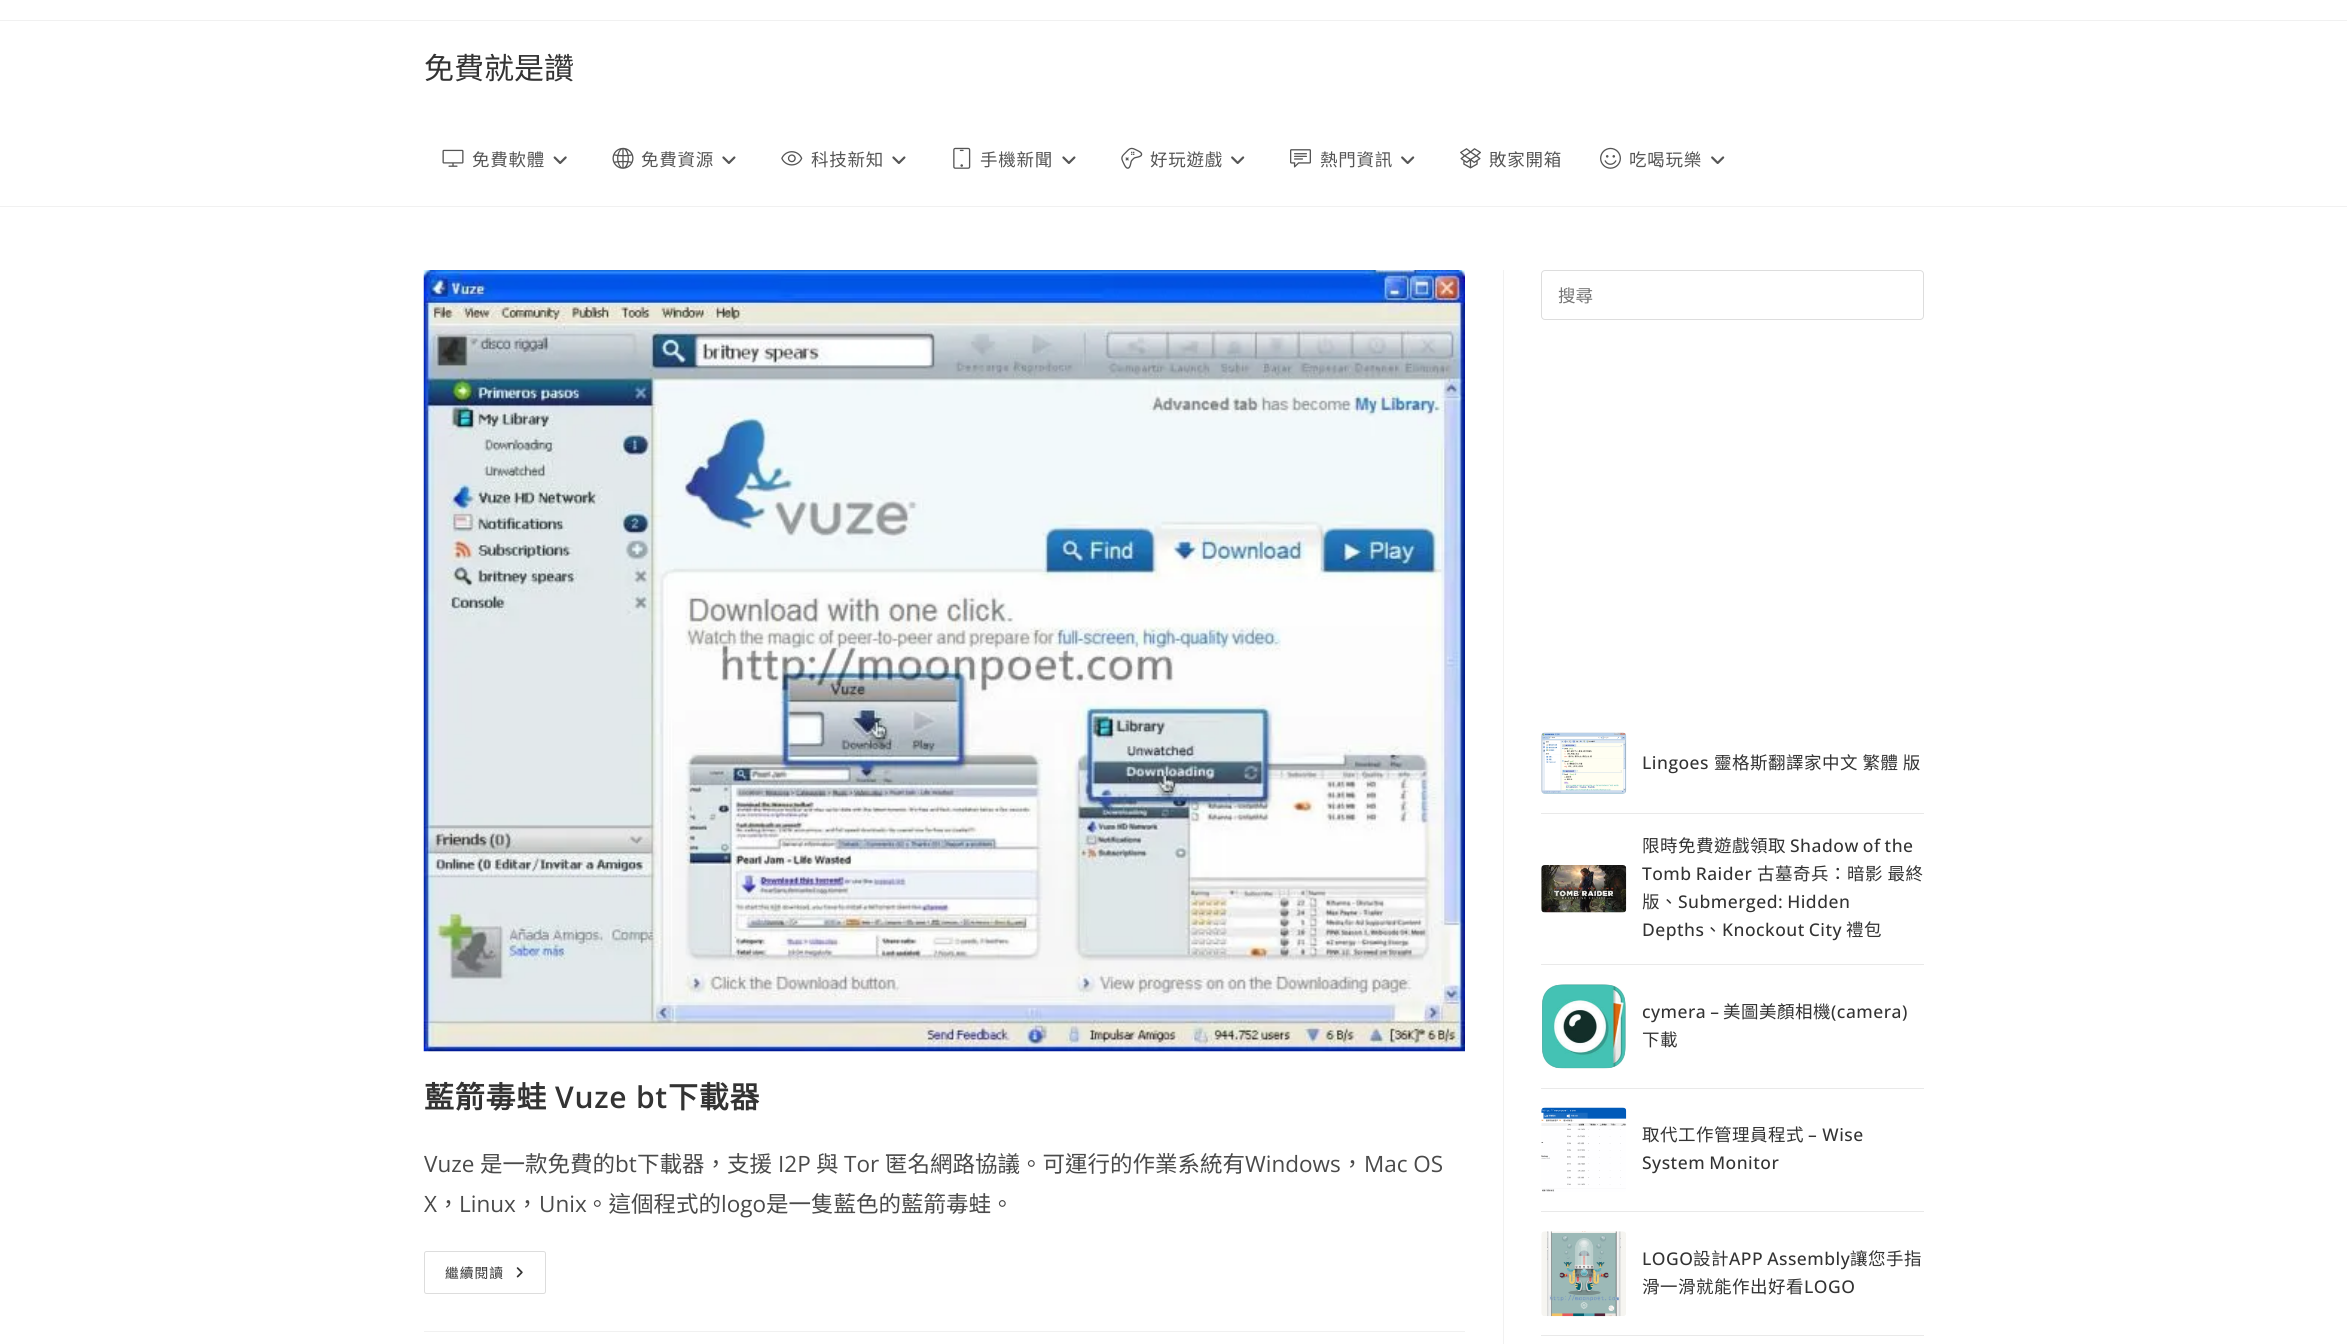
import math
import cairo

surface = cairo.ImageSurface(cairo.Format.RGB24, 2347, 1344)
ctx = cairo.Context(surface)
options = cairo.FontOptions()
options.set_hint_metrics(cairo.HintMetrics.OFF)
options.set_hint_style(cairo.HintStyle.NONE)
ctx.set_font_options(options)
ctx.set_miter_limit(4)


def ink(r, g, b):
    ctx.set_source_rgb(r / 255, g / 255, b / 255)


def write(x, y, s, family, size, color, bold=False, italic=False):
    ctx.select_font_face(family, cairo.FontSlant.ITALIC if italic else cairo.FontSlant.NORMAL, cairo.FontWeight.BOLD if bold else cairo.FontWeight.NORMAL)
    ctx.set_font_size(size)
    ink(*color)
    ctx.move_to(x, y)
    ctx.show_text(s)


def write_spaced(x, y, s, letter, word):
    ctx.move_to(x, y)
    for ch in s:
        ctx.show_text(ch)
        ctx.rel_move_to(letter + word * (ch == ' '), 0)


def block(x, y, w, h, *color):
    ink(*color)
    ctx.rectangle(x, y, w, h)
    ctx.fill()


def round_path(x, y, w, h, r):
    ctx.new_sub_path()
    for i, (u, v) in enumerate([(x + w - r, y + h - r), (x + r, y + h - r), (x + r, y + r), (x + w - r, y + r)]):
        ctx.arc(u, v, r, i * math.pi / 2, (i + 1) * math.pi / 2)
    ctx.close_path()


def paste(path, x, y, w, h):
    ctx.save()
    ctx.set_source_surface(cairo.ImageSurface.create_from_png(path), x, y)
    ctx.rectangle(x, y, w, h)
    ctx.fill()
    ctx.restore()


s1 = dict(family="Noto Sans CJK TC", size=30, color=(51, 51, 51))
s2 = dict(family="Open Sans", size=22.5, color=(74, 74, 74))
s3 = dict(family="Noto Sans CJK TC", size=22.5, color=(74, 74, 74))
s4 = dict(family="Noto Sans CJK TC", size=17.5, color=(117, 117, 117))

ink(255, 255, 255)
ctx.paint()
block(0, 20, 2347, 1, 241, 241, 241)
block(0, 206, 2347, 1, 241, 241, 241)
write(424, 79, "免費就是讚", **s1)
paste("pic1.png", 442, 149, 22, 18)
ctx.set_font_size(17.5)
ink(85, 85, 85)
write_spaced(472, 166, "免費軟體", 0.75, 0)
paste("pic2.png", 553, 156, 14, 8)
paste("pic3.png", 612, 147, 22, 22)
write_spaced(641, 166, "免費資源", 0.75, 0)
paste("pic4.png", 722, 156, 14, 8)
paste("pic5.png", 781, 151, 22, 15)
write_spaced(811, 166, "科技新知", 0.75, 0)
paste("pic4.png", 892, 156, 14, 8)
paste("pic6.png", 953, 147, 18, 22)
write_spaced(980, 166, "手機新聞", 0.75, 0)
paste("pic4.png", 1062, 156, 14, 8)
paste("pic7.png", 1121, 147, 22, 22)
write_spaced(1150, 166, "好玩遊戲", 0.75, 0)
paste("pic8.png", 1231, 156, 14, 8)
paste("pic9.png", 1290, 149, 21, 19)
write_spaced(1320, 166, "熱門資訊", 0.75, 0)
paste("pic8.png", 1401, 156, 14, 8)
paste("pic10.png", 1460, 148, 21, 21)
write_spaced(1489, 166, "敗家開箱", 0.75, 0)
paste("pic11.png", 1600, 147, 21, 22)
write_spaced(1629, 166, "吃喝玩樂", 0.75, 0)
paste("pic8.png", 1711, 156, 14, 8)
block(1503, 270, 1, 1074, 241, 241, 241)
block(424, 1331, 1041, 1, 241, 241, 241)
paste("pic12.png", 423, 270, 1042, 782)
ctx.select_font_face("Noto Sans CJK TC", cairo.FontSlant.NORMAL, cairo.FontWeight.BOLD)
ctx.set_font_size(30)
ink(51, 51, 51)
write_spaced(424, 1108, "藍箭毒蛙", 0.75, 0)
ctx.select_font_face("Open Sans SemiBold")
write_spaced(555, 1108, "Vuze bt", 0.75, 0)
ctx.select_font_face("Noto Sans CJK TC", cairo.FontSlant.NORMAL, cairo.FontWeight.BOLD)
write_spaced(668, 1108, "下載器", 0.75, 0)
write(424, 1172, "Vuze", **s2)
write(480, 1172, "是一款免費的", **s3)
write(615, 1172, "bt", **s2)
write(637, 1172, "下載器，支援", **s3)
write(778, 1172, "I2P", **s2)
write(816, 1172, "與", **s3)
write(844, 1172, "Tor", **s2)
write(885, 1172, "匿名網路協議。可運行的作業系統有", **s3)
write(1245, 1172, "Windows", **s2)
write(1341, 1172, "，", **s3)
write(1364, 1172, "Mac OS", **s2)
write(424, 1212, "X", **s2)
write(437, 1212, "，", **s3)
write(459, 1212, "Linux", **s2)
write(516, 1212, "，", **s3)
write(539, 1212, "Unix", **s2)
write(586, 1212, "。這個程式的", **s3)
write(721, 1212, "logo", **s2)
write(766, 1212, "是一隻藍色的藍箭毒蛙。", **s3)
round_path(424.5, 1251.5, 121, 42, 2)
ink(221, 221, 221)
ctx.set_line_width(1)
ctx.stroke()
ctx.set_font_size(13.75)
ink(51, 51, 51)
write_spaced(445, 1278, "繼續閱讀", 1, 0)
paste("pic13.png", 516, 1267, 7, 11)
round_path(1541.5, 270.5, 382, 49, 3.5)
ink(221, 221, 221)
ctx.stroke()
write(1558, 302, "搜尋", **s4)
paste("pic14.png", 1541, 732, 86, 62)
ctx.select_font_face("Open Sans Medium")
ink(51, 51, 51)
write_spaced(1642, 769, "Lingoes", 0.5, 0)
ctx.select_font_face("Noto Sans CJK TC")
write_spaced(1714, 769, "靈格斯翻譯家中文 繁體 版", 0.5, 0)
block(1541, 813, 383, 1, 233, 233, 233)
paste("pic15.png", 1541, 865, 86, 48)
ink(51, 51, 51)
write_spaced(1642, 852, "限時免費遊戲領取", 0.5, 0)
ctx.select_font_face("Open Sans Medium")
write_spaced(1790, 852, "Shadow of the", 0.5, -1)
write_spaced(1642, 880, "Tomb Raider", 0.5, -1)
ctx.select_font_face("Noto Sans CJK TC")
write_spaced(1757, 880, "古墓奇兵：暗影 最終", 0.5, 0)
write_spaced(1642, 908, "版、", 0.5, 0)
ctx.select_font_face("Open Sans Medium")
write_spaced(1678, 908, "Submerged: Hidden", 0.5, -1)
write_spaced(1642, 936, "Depths", 0.5, 0)
ctx.select_font_face("Noto Sans CJK TC")
write_spaced(1704, 936, "、", 0.5, 0)
ctx.select_font_face("Open Sans Medium")
write_spaced(1722, 936, "Knockout City", 0.5, -1)
ctx.select_font_face("Noto Sans CJK TC")
write_spaced(1846, 936, "禮包", 0.5, 0)
block(1541, 964, 383, 1, 233, 233, 233)
paste("pic16.png", 1542, 984, 84, 85)
ctx.select_font_face("Open Sans Medium")
ink(51, 51, 51)
write_spaced(1642, 1018, "cymera –", 0.5, -1)
ctx.select_font_face("Noto Sans CJK TC")
write_spaced(1723, 1018, "美圖美顏相機", 0.5, 0)
ctx.select_font_face("Open Sans Medium")
write_spaced(1831, 1018, "(camera)", 0.5, 0)
ctx.select_font_face("Noto Sans CJK TC")
write_spaced(1642, 1046, "下載", 0.5, 0)
block(1541, 1088, 383, 1, 233, 233, 233)
paste("pic17.png", 1541, 1107, 86, 85)
ink(51, 51, 51)
write_spaced(1642, 1141, "取代工作管理員程式", 0.5, 0)
ctx.select_font_face("Open Sans Medium")
write_spaced(1808, 1141, "– Wise", 0.5, 0)
write_spaced(1642, 1169, "System Monitor", 0.5, -1)
block(1541, 1211, 383, 1, 233, 233, 233)
paste("pic18.png", 1541, 1231, 85, 86)
ink(51, 51, 51)
write_spaced(1642, 1265, "LOGO", 0.5, 0)
ctx.select_font_face("Noto Sans CJK TC")
write_spaced(1693, 1265, "設計", 0.5, 0)
ctx.select_font_face("Open Sans Medium")
write_spaced(1729, 1265, "APP Assembly", 0.5, -1)
ctx.select_font_face("Noto Sans CJK TC")
write_spaced(1850, 1265, "讓您手指", 0.5, 0)
write_spaced(1642, 1293, "滑一滑就能作出好看", 0.5, 0)
ctx.select_font_face("Open Sans Medium")
write_spaced(1804, 1293, "LOGO", 0.5, 0)
block(1541, 1335, 383, 1, 233, 233, 233)
surface.write_to_png("screenshot.png")
